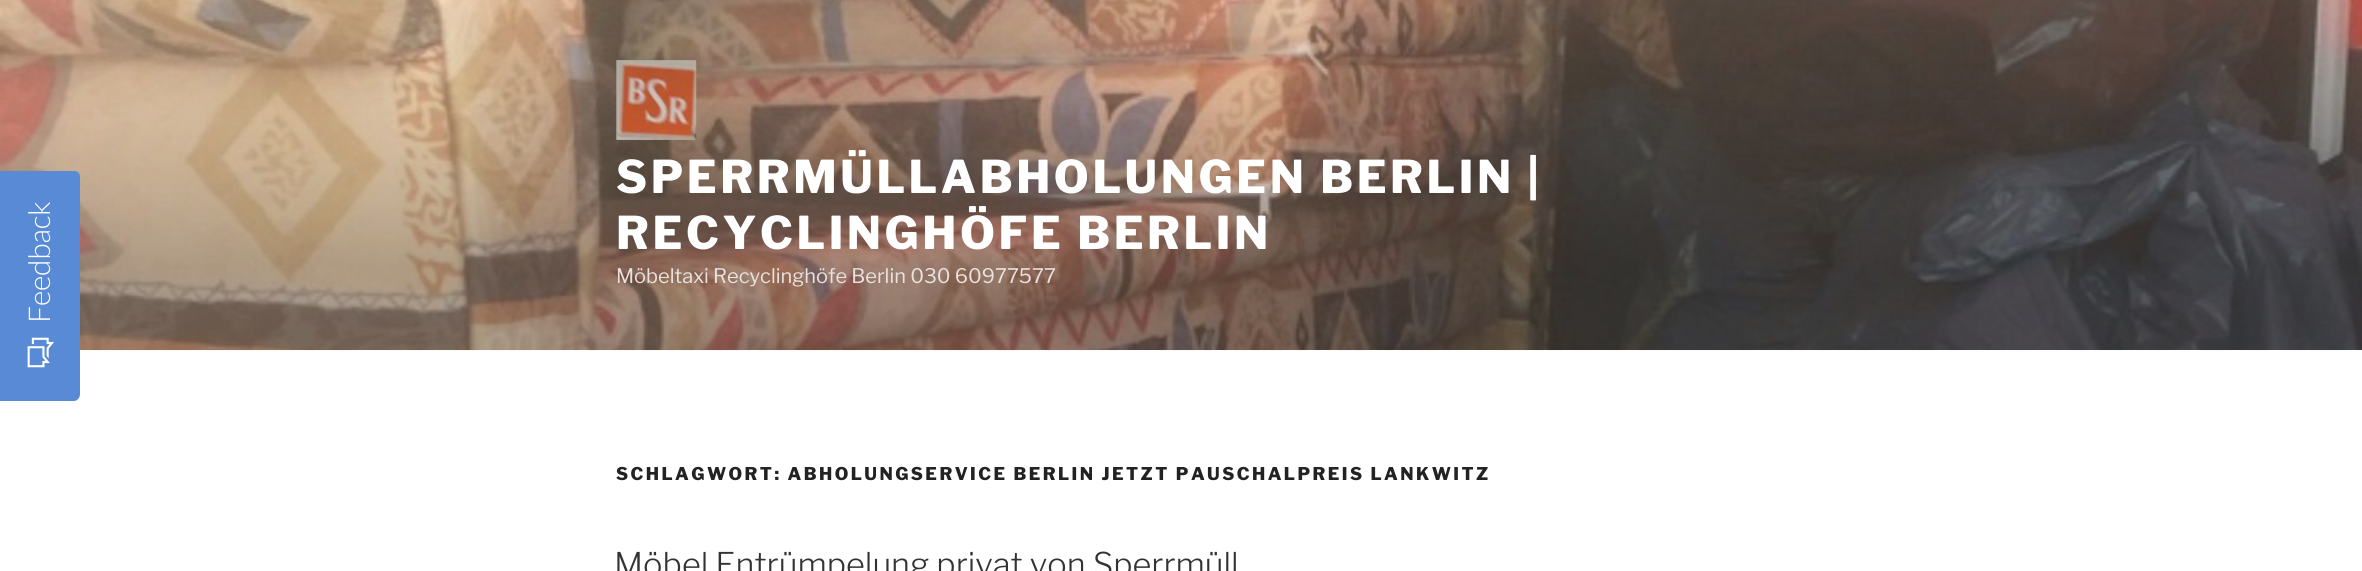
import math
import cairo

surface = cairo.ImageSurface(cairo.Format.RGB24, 2362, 571)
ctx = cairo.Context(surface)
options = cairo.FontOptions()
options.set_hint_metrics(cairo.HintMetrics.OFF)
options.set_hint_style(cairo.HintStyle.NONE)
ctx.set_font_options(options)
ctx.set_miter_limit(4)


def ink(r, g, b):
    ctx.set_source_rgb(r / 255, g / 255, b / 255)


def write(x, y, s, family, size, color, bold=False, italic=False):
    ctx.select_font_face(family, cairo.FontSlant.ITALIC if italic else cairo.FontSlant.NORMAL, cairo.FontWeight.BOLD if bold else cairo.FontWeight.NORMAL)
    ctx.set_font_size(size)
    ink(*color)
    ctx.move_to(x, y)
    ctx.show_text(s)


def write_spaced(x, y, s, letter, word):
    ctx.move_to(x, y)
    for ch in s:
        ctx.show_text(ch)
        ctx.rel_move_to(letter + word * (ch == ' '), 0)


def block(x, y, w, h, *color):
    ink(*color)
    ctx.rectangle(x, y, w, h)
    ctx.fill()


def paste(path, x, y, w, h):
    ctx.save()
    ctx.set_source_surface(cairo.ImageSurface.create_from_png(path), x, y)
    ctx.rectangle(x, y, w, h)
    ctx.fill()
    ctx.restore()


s1 = dict(family="Libre Franklin", size=20, color=(233, 226, 223))
s2 = dict(family="Libre Franklin Light", size=32.5, color=(51, 51, 51))

ink(255, 255, 255)
ctx.paint()
paste("pic2.png", 0, 0, 2362, 350)
ink(89, 138, 213)
ctx.new_path()
ctx.move_to(0, 401)
ctx.line_to(0, 171)
ctx.line_to(74, 171)
ctx.curve_to(77, 171, 80, 173, 80, 177)
ctx.line_to(80, 394)
ctx.curve_to(80, 398, 77, 401, 74, 401)
ctx.close_path()
ctx.fill()
ctx.select_font_face("Lato Light")
ctx.set_font_size(30)
ink(255, 255, 255)
ctx.save()
ctx.translate(50, 323)
ctx.rotate(-90 * math.pi / 180)
write_spaced(0, 0, "Feedback", -0.25, 0)
ctx.restore()
paste("pic1.png", 27, 337, 27, 31)
block(80, 350, 2282, 1, 250, 250, 250)
paste("pic3.png", 616, 60, 81, 80)
ctx.select_font_face("Libre Franklin ExtraBold")
ctx.set_font_size(45)
ink(255, 255, 255)
write_spaced(616, 193, "SPERRMÜLLABHOLUNGEN BERLIN |", 3.6, 0)
write_spaced(616, 249, "RECYCLINGHÖFE BERLIN", 3.6, 0)
write(616, 283, "Möbeltaxi Recyclinghöfe Berlin 030 60977577", **s1)
ctx.select_font_face("Libre Franklin ExtraBold")
ctx.set_font_size(17.5)
ink(34, 34, 34)
write_spaced(616, 480, "SCHLAGWORT: ABHOLUNGSERVICE BERLIN JETZT PAUSCHALPREIS LANKWITZ", 2.45, 0)
write(614, 576, "Möbel Entrümpelung privat von Sperrmüll", **s2)
surface.write_to_png("screenshot.png")
